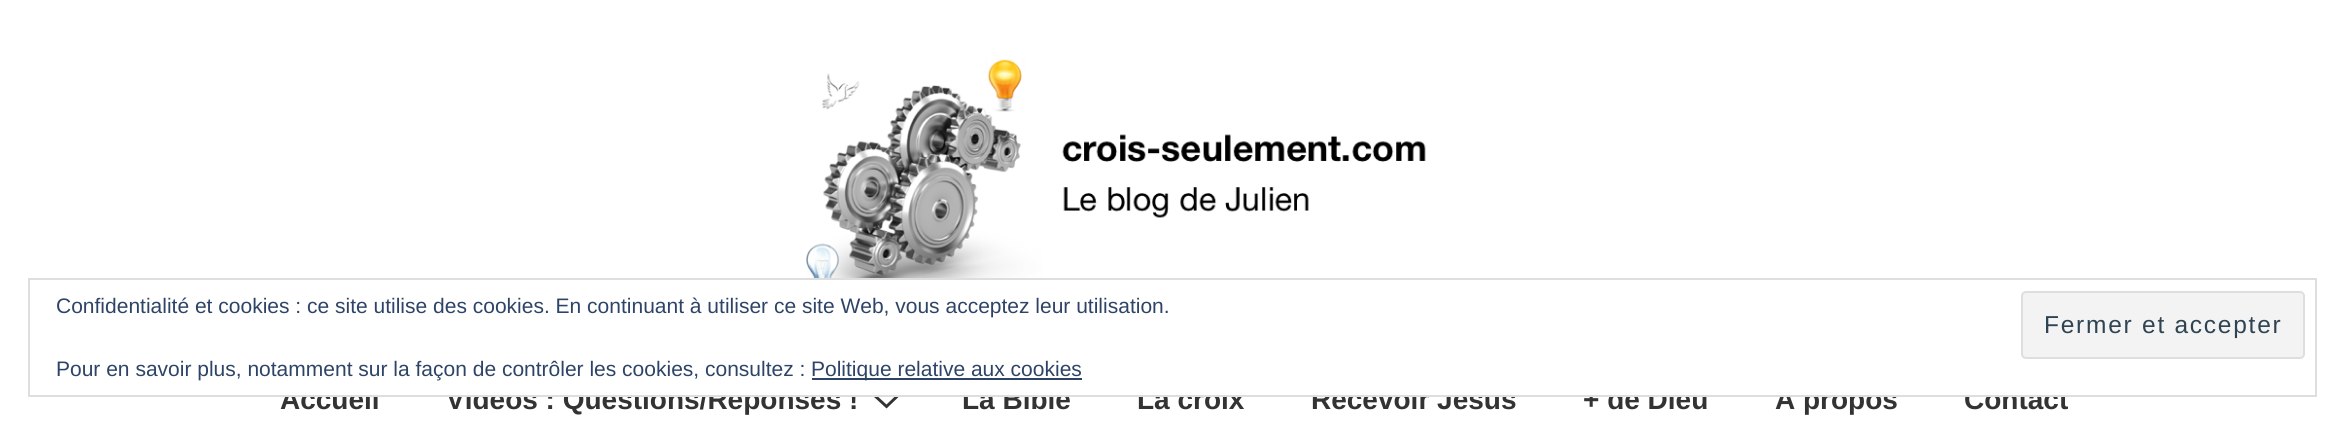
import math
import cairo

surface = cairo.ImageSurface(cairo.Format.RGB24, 2344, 424)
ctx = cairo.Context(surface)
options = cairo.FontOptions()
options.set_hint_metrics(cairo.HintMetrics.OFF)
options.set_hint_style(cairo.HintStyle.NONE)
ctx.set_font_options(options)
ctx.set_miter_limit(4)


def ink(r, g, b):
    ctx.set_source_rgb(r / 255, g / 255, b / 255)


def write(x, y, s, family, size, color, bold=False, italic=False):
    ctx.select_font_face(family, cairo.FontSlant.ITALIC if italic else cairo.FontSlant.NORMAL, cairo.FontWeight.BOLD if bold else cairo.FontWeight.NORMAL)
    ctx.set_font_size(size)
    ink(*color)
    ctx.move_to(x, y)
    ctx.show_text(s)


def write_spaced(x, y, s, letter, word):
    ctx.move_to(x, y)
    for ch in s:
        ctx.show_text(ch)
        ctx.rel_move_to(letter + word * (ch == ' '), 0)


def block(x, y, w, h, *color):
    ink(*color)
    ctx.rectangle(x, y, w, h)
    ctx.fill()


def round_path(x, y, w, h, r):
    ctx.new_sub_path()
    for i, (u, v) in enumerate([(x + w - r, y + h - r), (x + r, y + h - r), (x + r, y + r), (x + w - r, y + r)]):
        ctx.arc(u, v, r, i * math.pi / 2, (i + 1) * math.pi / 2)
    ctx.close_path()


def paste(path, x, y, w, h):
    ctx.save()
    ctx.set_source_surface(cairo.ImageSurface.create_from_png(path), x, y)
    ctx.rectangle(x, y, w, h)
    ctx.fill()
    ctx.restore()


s1 = dict(family="Liberation Sans", size=28, color=(51, 51, 51), bold=True)
s2 = dict(family="Liberation Sans", size=21, color=(46, 68, 103))

ink(255, 255, 255)
ctx.paint()
write(280, 409, "Accueil", **s1)
write(446, 409, "Vidéos : Questions/Réponses !", **s1)
ctx.new_path()
ctx.move_to(874, 395)
ctx.line_to(886.5, 406.5)
ctx.line_to(898.5, 395)
ctx.set_line_width(2.9)
ctx.set_line_cap(cairo.LineCap.ROUND)
ctx.stroke()
write(962, 409, "La Bible", **s1)
write(1137, 409, "La croix", **s1)
write(1311, 409, "Recevoir Jésus", **s1)
write(1583, 409, "+ de Dieu", **s1)
write(1775, 409, "A propos", **s1)
write(1964, 409, "Contact", **s1)
block(285, 388, 1783, 7, 255, 255, 255)
ctx.rectangle(29, 279, 2287, 117)
ink(222, 222, 222)
ctx.set_line_width(2)
ctx.set_line_cap(cairo.LineCap.BUTT)
ctx.stroke()
write(56, 313, "Confidentialité et cookies : ce site utilise des cookies. En continuant à utiliser ce site Web, vous acceptez leur utilisation.", **s2)
ink(243, 243, 243)
round_path(2022, 292, 282, 66, 4)
ctx.fill_preserve()
ink(222, 222, 222)
ctx.stroke()
ctx.set_font_size(24.5)
ink(46, 68, 83)
write_spaced(2044, 333, "Fermer et accepter", 1.75, 0)
write(56, 376, "Pour en savoir plus, notamment sur la façon de contrôler les cookies, consultez :", **s2)
block(812, 378, 270, 2, 46, 68, 103)
write(811, 376, "Politique relative aux cookies", **s2)
paste("pic1.png", 806, 59, 620, 219)
surface.write_to_png("screenshot.png")
